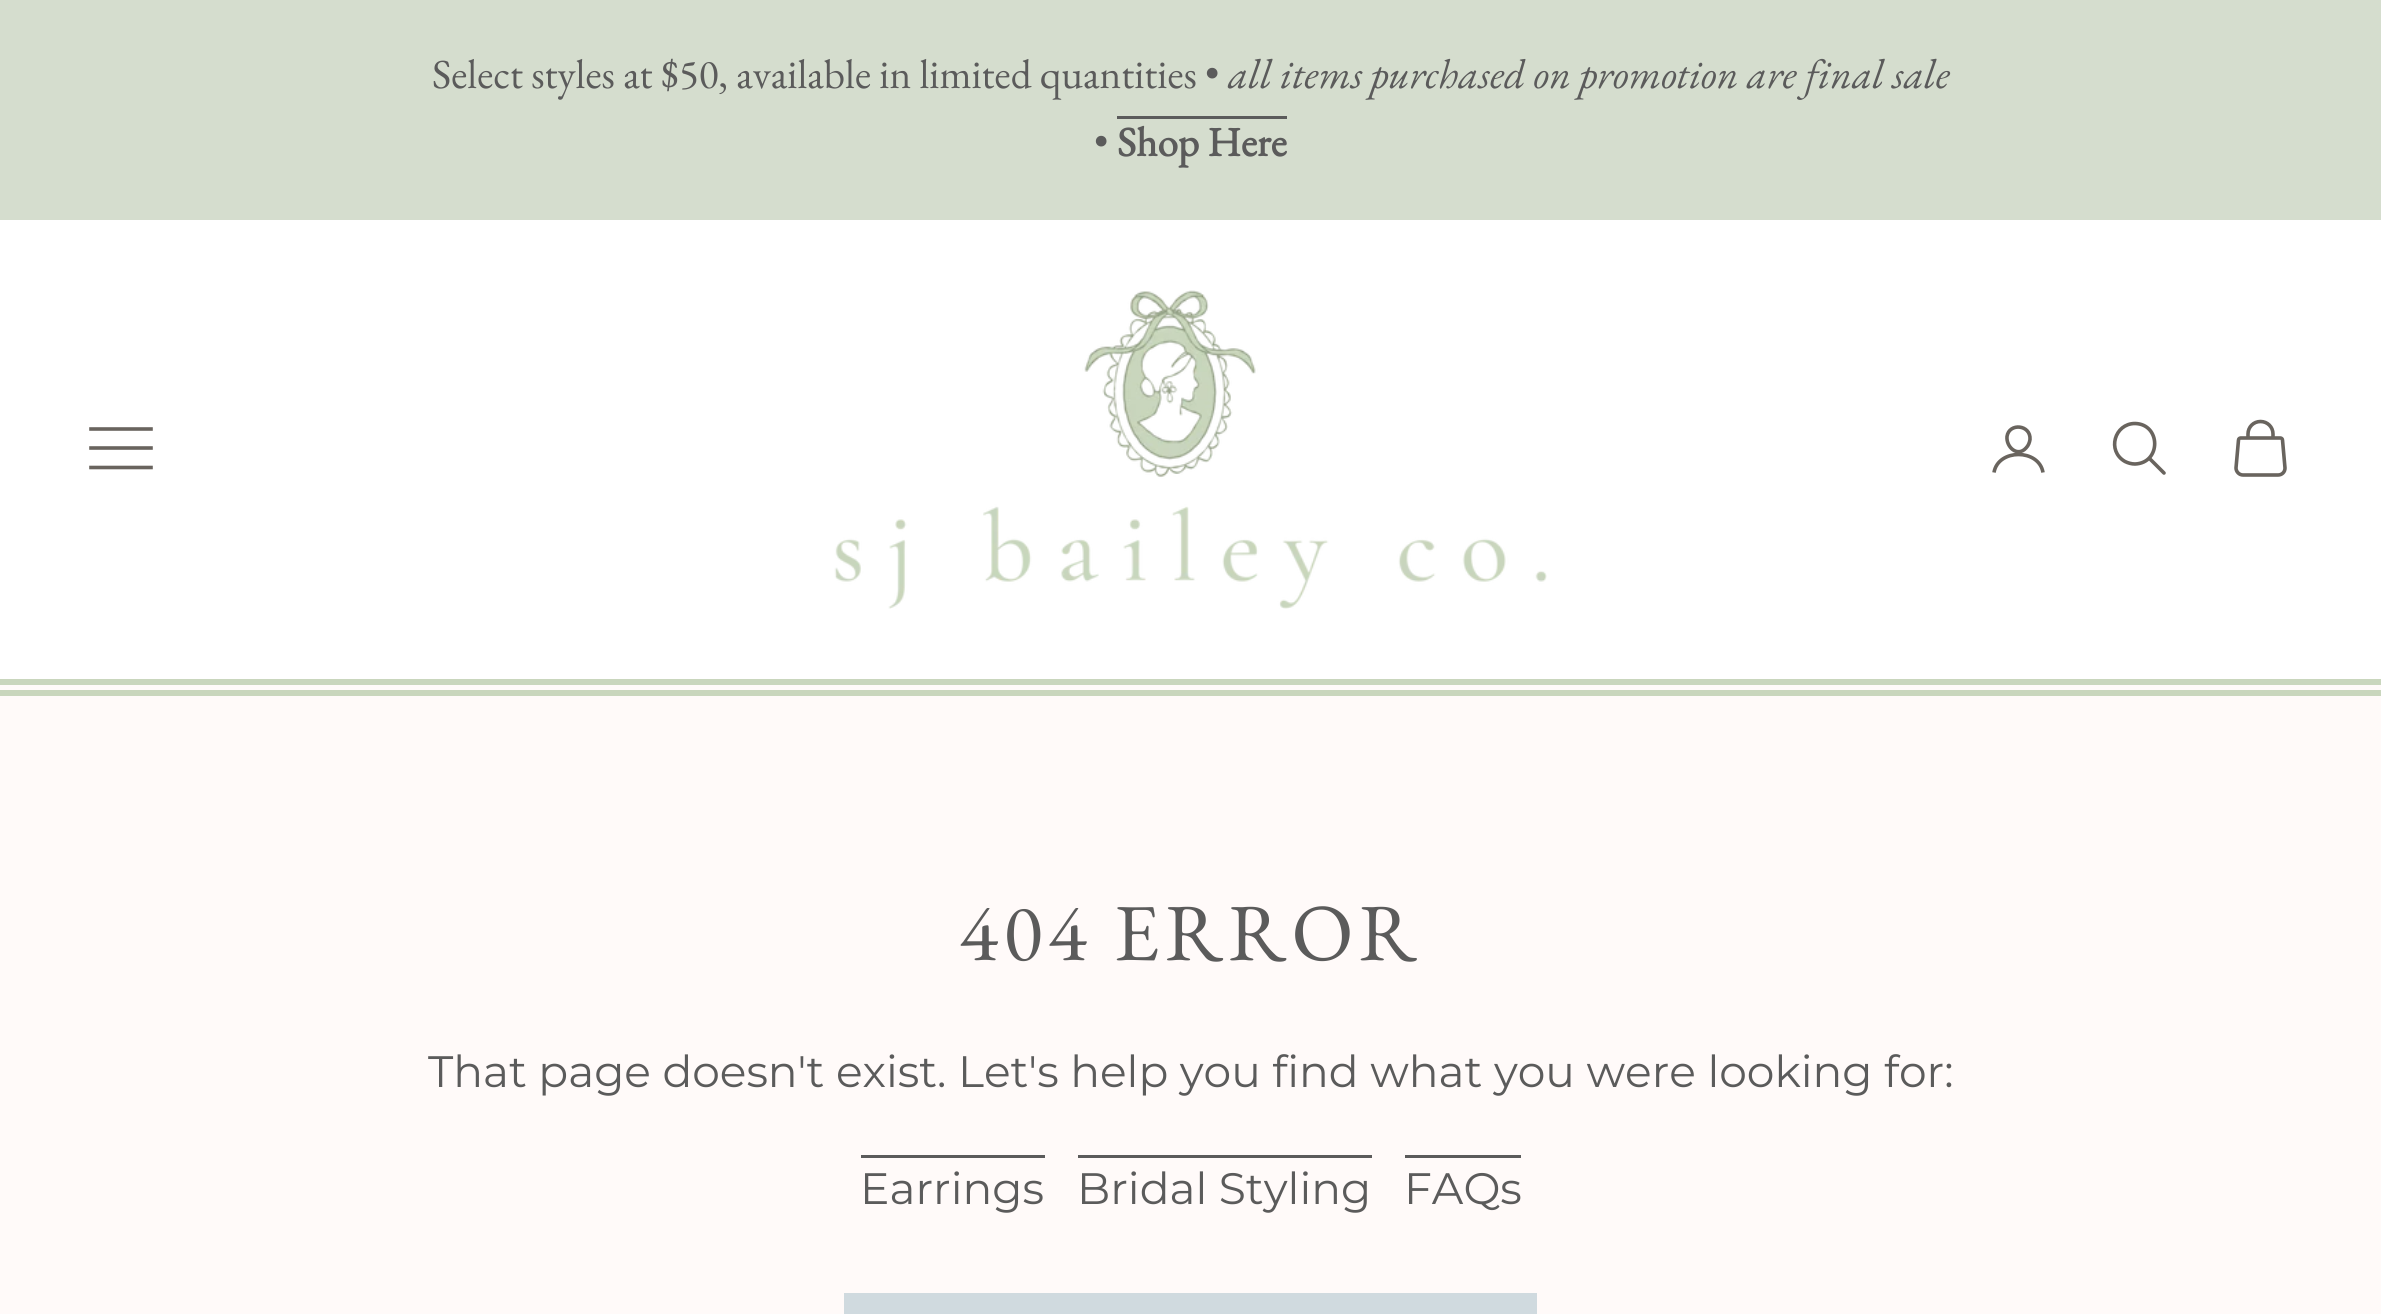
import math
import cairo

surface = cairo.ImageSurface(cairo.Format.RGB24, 2381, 1314)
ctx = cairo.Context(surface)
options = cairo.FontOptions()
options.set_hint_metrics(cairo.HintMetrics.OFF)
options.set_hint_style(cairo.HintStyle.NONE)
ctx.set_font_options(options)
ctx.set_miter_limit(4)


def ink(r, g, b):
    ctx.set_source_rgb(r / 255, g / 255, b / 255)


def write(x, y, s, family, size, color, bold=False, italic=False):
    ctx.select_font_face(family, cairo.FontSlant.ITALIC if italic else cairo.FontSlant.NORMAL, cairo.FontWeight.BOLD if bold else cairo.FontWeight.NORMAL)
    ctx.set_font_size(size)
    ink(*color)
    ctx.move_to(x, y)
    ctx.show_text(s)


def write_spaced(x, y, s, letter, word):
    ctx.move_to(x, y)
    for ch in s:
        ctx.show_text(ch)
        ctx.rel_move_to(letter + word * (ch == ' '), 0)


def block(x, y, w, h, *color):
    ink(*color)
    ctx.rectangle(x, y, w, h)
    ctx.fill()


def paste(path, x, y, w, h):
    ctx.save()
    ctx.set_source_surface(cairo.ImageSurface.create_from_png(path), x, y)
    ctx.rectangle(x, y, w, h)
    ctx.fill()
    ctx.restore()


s1 = dict(family="EB Garamond", size=41.25, color=(91, 91, 91))
s2 = dict(family="EB Garamond", size=41.25, color=(91, 91, 91), italic=True)
s3 = dict(family="EB Garamond", size=41.25, color=(91, 91, 91), bold=True)
s4 = dict(family="Montserrat Thin", size=44, color=(91, 91, 91))

ink(255, 250, 249)
ctx.paint()
block(0, 0, 2381, 220, 213, 221, 206)
write(432, 88, "Select styles at $50, available in limited quantities •", **s1)
write(1228, 88, "all items purchased on promotion are final sale", **s2)
write(1094, 156, "•", **s1)
write(1117, 156, "Shop Here", **s3)
block(1117, 116, 170, 3, 91, 91, 91)
block(0, 679, 2381, 6, 201, 214, 189)
block(0, 690, 2381, 6, 201, 214, 189)
block(0, 220, 2381, 459, 255, 255, 255)
ctx.new_path()
ctx.move_to(91, 467.5)
ctx.line_to(151, 467.5)
ctx.move_to(91, 448)
ctx.line_to(151, 448)
ctx.move_to(91, 429)
ctx.line_to(151, 429)
ink(105, 100, 94)
ctx.set_line_width(3.6)
ctx.set_line_cap(cairo.LineCap.SQUARE)
ctx.stroke()
paste("pic1.png", 834, 290, 713, 319)
ctx.new_path()
ctx.move_to(2030, 439.5)
ctx.curve_to(2029.5, 442.5, 2028.5, 445.5, 2026, 448)
ctx.curve_to(2017.5, 457.5, 2006, 447, 2007, 436.5)
ctx.curve_to(2009, 422.5, 2031, 424.5, 2030, 439.5)
ctx.close_path()
ctx.set_line_cap(cairo.LineCap.ROUND)
ctx.set_line_join(cairo.LineJoin.ROUND)
ctx.stroke()
ctx.new_path()
ctx.move_to(1994, 472.5)
ctx.curve_to(1998, 448.5, 2039, 448.5, 2043, 472.5)
ctx.set_line_cap(cairo.LineCap.BUTT)
ctx.set_line_join(cairo.LineJoin.MITER)
ctx.stroke()
ctx.new_path()
ctx.move_to(2135, 423.5)
ctx.curve_to(2114.5, 423.5, 2106.5, 451, 2125, 461.5)
ctx.curve_to(2128, 463, 2131.5, 464, 2135, 464)
ctx.curve_to(2161.5, 463, 2161, 424, 2135, 423.5)
ctx.close_path()
ctx.stroke()
ctx.new_path()
ctx.move_to(2150, 459)
ctx.line_to(2164, 473)
ctx.set_line_cap(cairo.LineCap.ROUND)
ctx.stroke()
ctx.new_path()
ctx.move_to(2240.5, 438)
ctx.curve_to(2239.5, 438, 2238.5, 439, 2238.5, 440)
ctx.line_to(2236, 468)
ctx.curve_to(2236, 471.5, 2239, 475, 2243, 475)
ctx.line_to(2278, 475)
ctx.curve_to(2282, 475, 2285, 472, 2285, 468)
ctx.line_to(2282.5, 440)
ctx.curve_to(2282.5, 439, 2281.5, 438, 2280.5, 438)
ctx.close_path()
ctx.move_to(2248, 438)
ctx.line_to(2248, 434)
ctx.curve_to(2248, 427, 2253.5, 421.5, 2260.5, 421.5)
ctx.curve_to(2267.5, 421.5, 2273, 427, 2273, 434)
ctx.line_to(2273, 438)
ctx.set_line_join(cairo.LineJoin.ROUND)
ctx.stroke()
ctx.select_font_face("EB Garamond")
ctx.set_font_size(81)
ink(91, 91, 91)
write_spaced(959, 960, "404 ERROR", 5.5, 0)
write(428, 1087, "That page doesn't exist. Let's help you find what you were looking for:", **s4)
block(861, 1155, 184, 3, 91, 91, 91)
write(860, 1204, "Earrings", **s4)
block(1078, 1155, 294, 3, 91, 91, 91)
write(1077, 1204, "Bridal Styling", **s4)
block(1405, 1155, 116, 3, 91, 91, 91)
write(1404, 1204, "FAQs", **s4)
ink(208, 218, 223)
ctx.rectangle(845.5, 1294.5, 690, 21)
ctx.fill_preserve()
ctx.set_line_width(3)
ctx.set_line_cap(cairo.LineCap.BUTT)
ctx.set_line_join(cairo.LineJoin.MITER)
ctx.stroke()
surface.write_to_png("screenshot.png")
